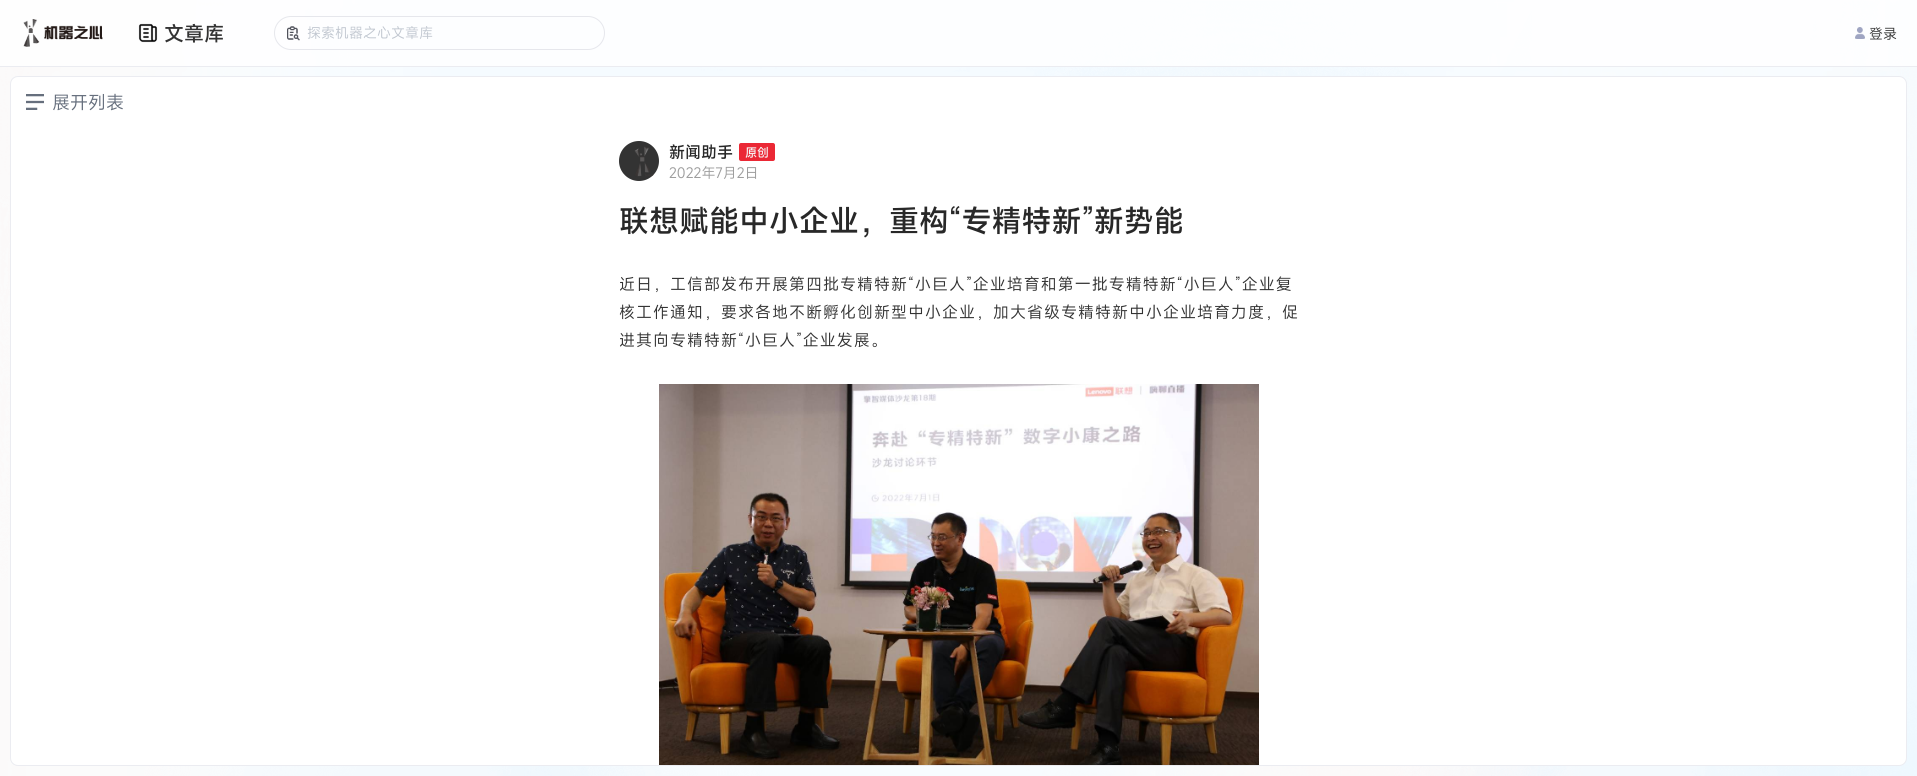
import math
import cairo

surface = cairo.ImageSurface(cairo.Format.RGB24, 1917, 776)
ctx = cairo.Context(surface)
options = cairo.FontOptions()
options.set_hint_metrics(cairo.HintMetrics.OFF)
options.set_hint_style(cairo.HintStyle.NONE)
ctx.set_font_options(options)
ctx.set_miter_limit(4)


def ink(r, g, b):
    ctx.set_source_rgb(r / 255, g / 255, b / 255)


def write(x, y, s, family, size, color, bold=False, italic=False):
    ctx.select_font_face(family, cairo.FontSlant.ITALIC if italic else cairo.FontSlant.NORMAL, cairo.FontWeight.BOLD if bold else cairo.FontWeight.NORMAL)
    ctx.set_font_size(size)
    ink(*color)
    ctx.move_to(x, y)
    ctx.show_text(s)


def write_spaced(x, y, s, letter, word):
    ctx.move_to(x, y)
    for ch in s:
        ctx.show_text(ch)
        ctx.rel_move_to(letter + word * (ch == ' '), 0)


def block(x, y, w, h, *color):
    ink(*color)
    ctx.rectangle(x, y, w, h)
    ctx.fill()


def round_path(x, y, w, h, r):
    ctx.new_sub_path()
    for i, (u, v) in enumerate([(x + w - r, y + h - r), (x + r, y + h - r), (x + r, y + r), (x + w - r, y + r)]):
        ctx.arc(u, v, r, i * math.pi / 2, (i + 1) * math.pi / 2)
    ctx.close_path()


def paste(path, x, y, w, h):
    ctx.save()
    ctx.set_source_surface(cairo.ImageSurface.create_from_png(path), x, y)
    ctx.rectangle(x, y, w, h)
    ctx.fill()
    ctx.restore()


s1 = dict(family="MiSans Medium", size=20, color=(51, 51, 51))
s2 = dict(family="MiSans", size=14, color=(193, 199, 208))
s3 = dict(family="MiSans", size=14, color=(51, 51, 51))
s4 = dict(family="MiSans", size=18, color=(102, 111, 125))
s5 = dict(family="MiSans Medium", size=16, color=(40, 40, 40))
s6 = dict(family="MiSans Medium", size=12, color=(246, 246, 246))
s7 = dict(family="MiSans", size=14, color=(157, 157, 157))
s8 = dict(family="MiSans Medium", size=30, color=(40, 40, 40))

ink(255, 255, 255)
ctx.paint()
paste("pic1.png", 0, 0, 1917, 776)
block(0, 66, 1917, 1, 235, 236, 241)
ctx.set_source_rgba(1, 1, 1, 0.8)
ctx.rectangle(0, 0, 1917, 66)
ctx.fill()
paste("pic2.png", 23, 19, 80, 28)
paste("pic3.png", 138, 23, 20, 20)
write(164, 41, "文章库", **s1)
round_path(274.5, 16.5, 330, 33, 16.5)
ink(230, 231, 236)
ctx.set_line_width(1)
ctx.stroke()
paste("pic4.png", 287, 26, 13, 15)
write(307, 38, "探索机器之心文章库", **s2)
paste("pic5.png", 1855, 27, 10, 12)
write(1869, 39, "登录", **s3)
ink(255, 255, 255)
round_path(10.5, 76.5, 1896, 689, 7.5)
ctx.fill_preserve()
ink(235, 236, 241)
ctx.stroke()
paste("pic6.png", 26, 94, 18, 16)
write(52, 109, "展开列表", **s4)
ink(51, 51, 51)
ctx.new_path()
ctx.arc(639, 161, 20, 0, 2 * math.pi)
ctx.fill()
paste("pic7.png", 634, 146, 20, 31)
write(669, 158, "新闻助手", **s5)
ink(235, 40, 53)
round_path(739, 143, 36, 18, 2)
ctx.fill()
write(745, 157, "原创", **s6)
write(669, 178, "2022年7月2日", **s7)
write(619, 232, "联想赋能中小企业，重构“专精特新”新势能", **s8)
ctx.select_font_face("MiSans")
ctx.set_font_size(16)
ink(51, 51, 51)
write_spaced(619, 290, "近日，工信部发布开展第四批专精特新“小巨人”企业培育和第一批专精特新“小巨人”企业复", 1, 0)
write_spaced(619, 318, "核工作通知，要求各地不断孵化创新型中小企业，加大省级专精特新中小企业培育力度，促", 1, 0)
write_spaced(619, 346, "进其向专精特新“小巨人”企业发展。", 1, 0)
paste("pic8.png", 659, 384, 600, 381)
surface.write_to_png("screenshot.png")
